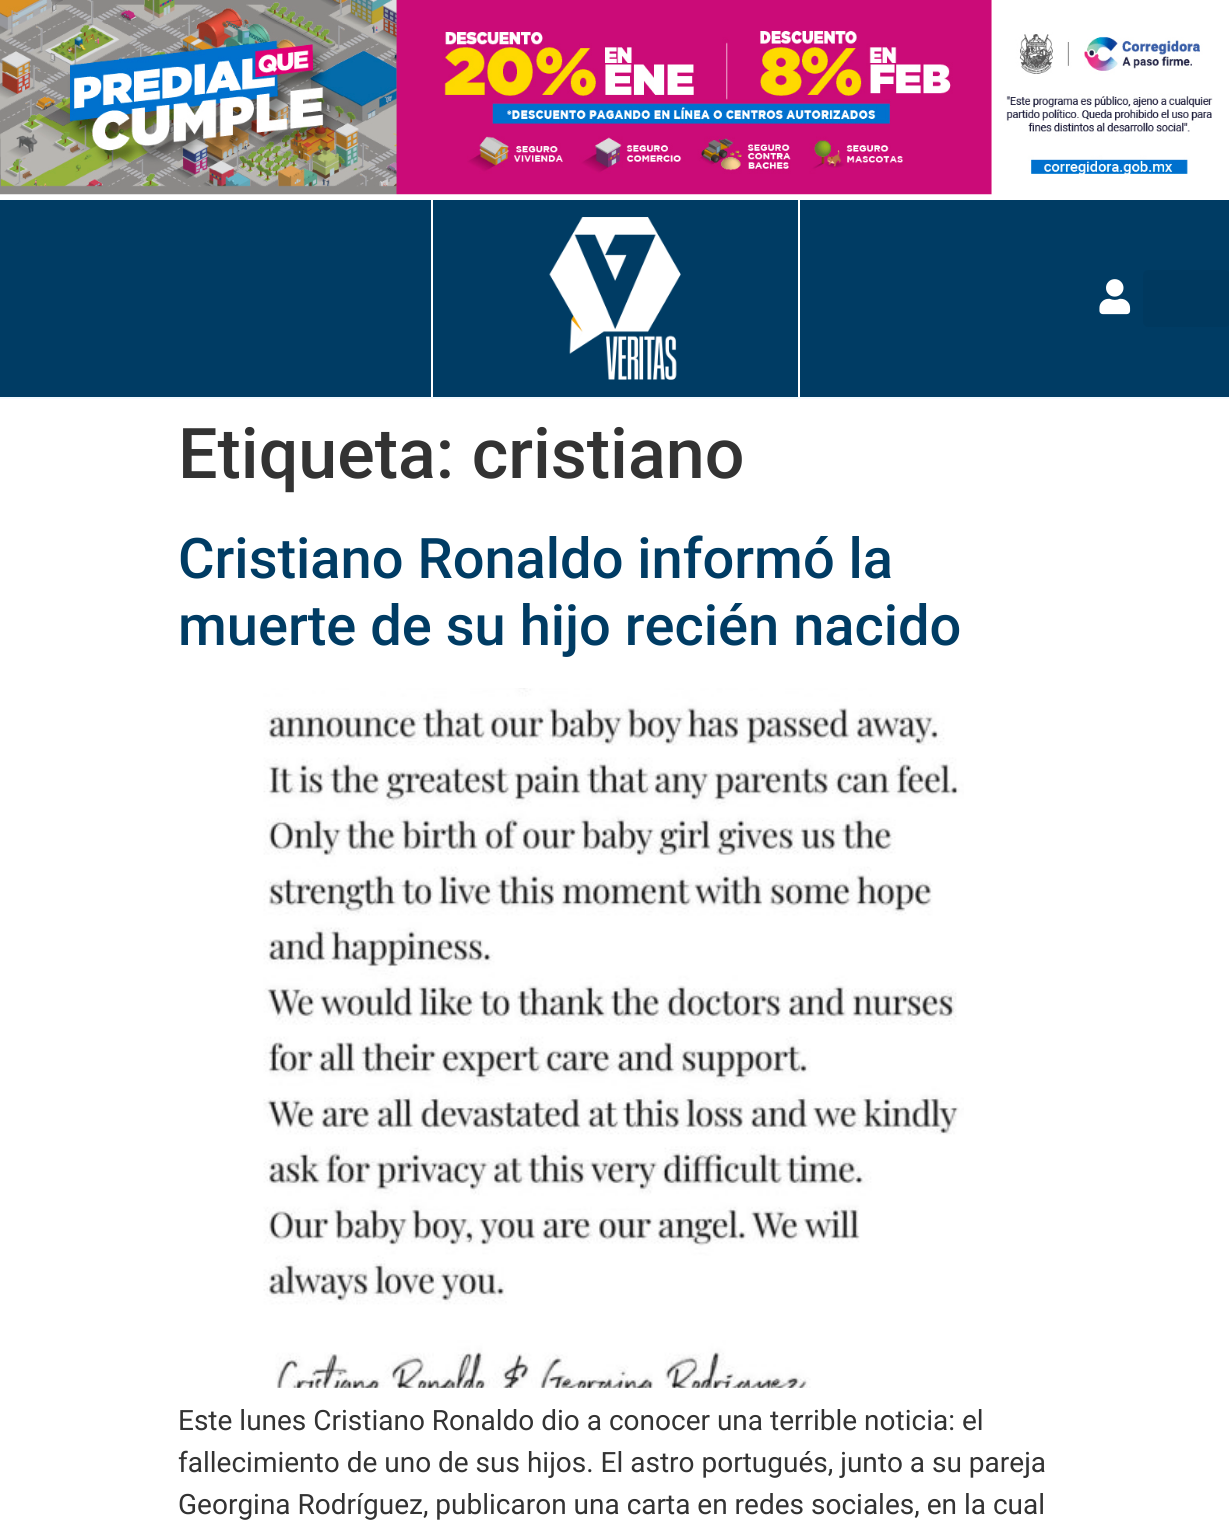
import math
import cairo

surface = cairo.ImageSurface(cairo.Format.RGB24, 1229, 1527)
ctx = cairo.Context(surface)
options = cairo.FontOptions()
options.set_hint_metrics(cairo.HintMetrics.OFF)
options.set_hint_style(cairo.HintStyle.NONE)
ctx.set_font_options(options)
ctx.set_miter_limit(4)


def ink(r, g, b):
    ctx.set_source_rgb(r / 255, g / 255, b / 255)


def write(x, y, s, family, size, color, bold=False, italic=False):
    ctx.select_font_face(family, cairo.FontSlant.ITALIC if italic else cairo.FontSlant.NORMAL, cairo.FontWeight.BOLD if bold else cairo.FontWeight.NORMAL)
    ctx.set_font_size(size)
    ink(*color)
    ctx.move_to(x, y)
    ctx.show_text(s)


def block(x, y, w, h, *color):
    ink(*color)
    ctx.rectangle(x, y, w, h)
    ctx.fill()


def round_path(x, y, w, h, r):
    ctx.new_sub_path()
    for i, (u, v) in enumerate([(x + w - r, y + h - r), (x + r, y + h - r), (x + r, y + r), (x + w - r, y + r)]):
        ctx.arc(u, v, r, i * math.pi / 2, (i + 1) * math.pi / 2)
    ctx.close_path()


def paste(path, x, y, w, h):
    ctx.save()
    ctx.set_source_surface(cairo.ImageSurface.create_from_png(path), x, y)
    ctx.rectangle(x, y, w, h)
    ctx.fill()
    ctx.restore()


s1 = dict(family="Roboto Medium", size=70, color=(51, 51, 51))
s2 = dict(family="Roboto Medium", size=56, color=(0, 60, 100))
s3 = dict(family="Roboto", size=28, color=(51, 51, 51))

ink(255, 255, 255)
ctx.paint()
paste("pic1.png", 0, 0, 1213, 195)
block(0, 200, 1229, 197, 0, 60, 100)
block(798, 200, 2, 197, 255, 255, 255)
block(431, 200, 2, 197, 255, 255, 255)
paste("pic2.png", 549, 217, 132, 163)
paste("pic3.png", 1099, 279, 32, 36)
ink(0, 57, 95)
round_path(1143, 270, 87, 57, 5)
ctx.fill()
block(0, 397, 1229, 2, 243, 250, 255)
write(178, 478, "Etiqueta: cristiano", **s1)
write(178, 578, "Cristiano Ronaldo informó la", **s2)
write(178, 645, "muerte de su hijo recién nacido", **s2)
paste("pic4.png", 263, 688, 701, 700)
write(178, 1430, "Este lunes Cristiano Ronaldo dio a conocer una terrible noticia: el", **s3)
write(178, 1472, "fallecimiento de uno de sus hijos. El astro portugués, junto a su pareja", **s3)
write(178, 1514, "Georgina Rodríguez, publicaron una carta en redes sociales, en la cual", **s3)
surface.write_to_png("screenshot.png")
